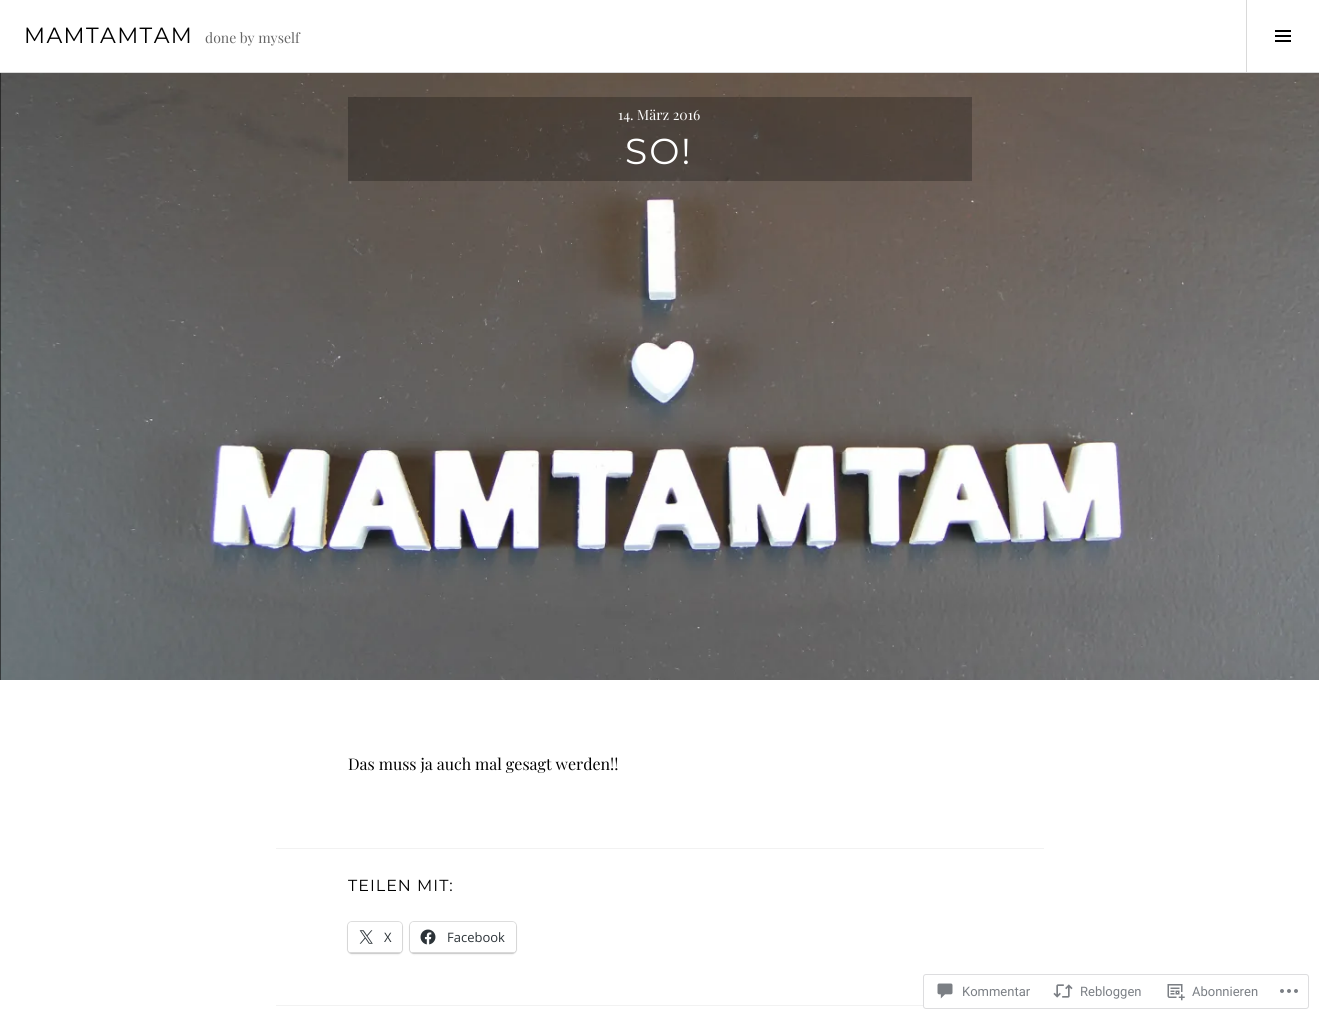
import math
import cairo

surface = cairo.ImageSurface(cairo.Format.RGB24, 1319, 1019)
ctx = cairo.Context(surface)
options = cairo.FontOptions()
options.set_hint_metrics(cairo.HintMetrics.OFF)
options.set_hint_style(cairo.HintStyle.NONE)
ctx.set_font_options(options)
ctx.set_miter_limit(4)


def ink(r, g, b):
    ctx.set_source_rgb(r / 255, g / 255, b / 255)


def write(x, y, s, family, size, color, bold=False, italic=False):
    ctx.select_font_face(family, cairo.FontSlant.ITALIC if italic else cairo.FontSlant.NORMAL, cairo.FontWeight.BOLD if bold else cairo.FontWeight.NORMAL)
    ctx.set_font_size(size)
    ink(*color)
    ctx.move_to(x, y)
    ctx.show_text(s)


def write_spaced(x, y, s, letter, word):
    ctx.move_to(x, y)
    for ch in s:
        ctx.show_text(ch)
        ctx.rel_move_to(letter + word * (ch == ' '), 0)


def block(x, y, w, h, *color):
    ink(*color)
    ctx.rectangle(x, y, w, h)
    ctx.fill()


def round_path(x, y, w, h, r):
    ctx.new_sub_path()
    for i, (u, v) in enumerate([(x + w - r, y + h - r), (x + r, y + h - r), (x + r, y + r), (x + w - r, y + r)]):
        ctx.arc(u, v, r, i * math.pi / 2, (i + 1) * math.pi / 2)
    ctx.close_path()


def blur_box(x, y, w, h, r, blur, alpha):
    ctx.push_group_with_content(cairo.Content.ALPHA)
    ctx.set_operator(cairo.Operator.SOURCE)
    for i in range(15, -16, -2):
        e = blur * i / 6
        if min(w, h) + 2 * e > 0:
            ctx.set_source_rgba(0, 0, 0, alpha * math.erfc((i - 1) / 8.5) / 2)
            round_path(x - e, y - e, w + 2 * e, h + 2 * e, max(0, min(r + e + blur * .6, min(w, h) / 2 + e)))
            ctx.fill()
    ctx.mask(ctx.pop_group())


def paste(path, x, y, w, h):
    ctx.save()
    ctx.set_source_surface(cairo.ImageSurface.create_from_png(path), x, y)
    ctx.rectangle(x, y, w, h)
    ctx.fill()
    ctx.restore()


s1 = dict(family="Playfair Display", size=14, color=(102, 102, 102))
s2 = dict(family="Playfair Display", size=14, color=(255, 255, 255))
s3 = dict(family="Playfair Display", size=16, color=(0, 0, 0))
s4 = dict(family="Open Sans", size=13, color=(44, 51, 56))
s5 = dict(family="Roboto", size=13, color=(123, 127, 133))

ink(255, 255, 255)
ctx.paint()
block(0, 72, 1319, 1, 217, 217, 217)
ctx.select_font_face("Montserrat")
ctx.set_font_size(22)
ink(0, 0, 0)
write_spaced(24, 43, "MAMTAMTAM", 1.4, 0)
write(205, 43, "done by myself", **s1)
block(1246, 0, 1, 72, 217, 217, 217)
paste("pic1.png", 1275, 30, 16, 12)
block(0, 73, 1, 607, 0, 0, 0)
paste("pic2.png", 0, 73, 1319, 607)
ctx.set_source_rgba(0, 0, 0, 0.25)
ctx.rectangle(348, 97, 624, 84)
ctx.fill()
write(618, 120, "14. März 2016", **s2)
ctx.select_font_face("Montserrat")
ctx.set_font_size(36)
write_spaced(625, 164, "SO!", 2, 0)
write(348, 770, "Das muss ja auch mal gesagt werden!!", **s3)
block(276, 848, 768, 1, 242, 242, 242)
ctx.select_font_face("Montserrat")
ink(0, 0, 0)
write_spaced(348, 891, "TEILEN MIT:", 1, 0)
round_path(347.5, 921.5, 55, 32, 4.5)
ink(224, 224, 224)
ctx.set_line_width(1)
ctx.stroke()
ink(0, 0, 0)
blur_box(348, 923, 54, 31, 4, 1, 0.12)
ink(255, 255, 255)
round_path(348, 922, 54, 31, 4)
ctx.fill()
block(350, 952, 50, 1, 217, 217, 217)
paste("pic3.png", 359, 930, 14, 14)
write(384, 942, "X", **s4)
round_path(409.5, 921.5, 107, 32, 4.5)
ink(224, 224, 224)
ctx.stroke()
ink(0, 0, 0)
blur_box(410, 923, 106, 31, 4, 1, 0.12)
ink(255, 255, 255)
round_path(410, 922, 106, 31, 4)
ctx.fill()
block(412, 952, 102, 1, 217, 217, 217)
paste("pic4.png", 420, 929, 16, 16)
write(447, 942, "Facebook", **s4)
block(276, 1005, 768, 1, 242, 242, 242)
ctx.set_source_rgba(1, 1, 1, 0.98)
round_path(923.5, 974.5, 385, 34, 2.5)
ctx.fill_preserve()
ink(221, 221, 223)
ctx.stroke()
paste("pic5.png", 937, 983, 16, 16)
write(962, 996, "Kommentar", **s5)
paste("pic6.png", 1053, 984, 20, 14)
write(1080, 996, "Rebloggen", **s5)
paste("pic7.png", 1167, 984, 18, 17)
write(1192, 996, "Abonnieren", **s5)
paste("pic8.png", 1280, 989, 18, 4)
surface.write_to_png("screenshot.png")
